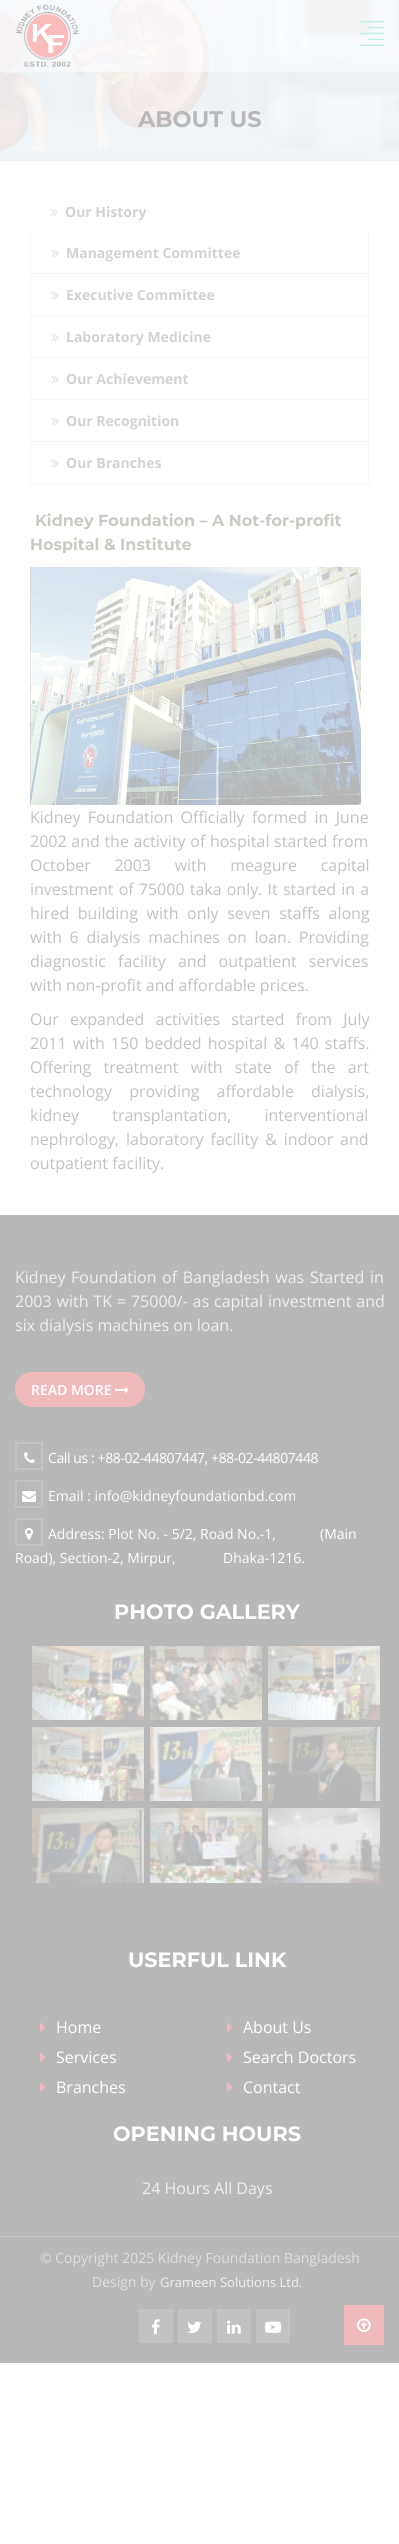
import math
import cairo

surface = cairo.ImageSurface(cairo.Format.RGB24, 399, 2544)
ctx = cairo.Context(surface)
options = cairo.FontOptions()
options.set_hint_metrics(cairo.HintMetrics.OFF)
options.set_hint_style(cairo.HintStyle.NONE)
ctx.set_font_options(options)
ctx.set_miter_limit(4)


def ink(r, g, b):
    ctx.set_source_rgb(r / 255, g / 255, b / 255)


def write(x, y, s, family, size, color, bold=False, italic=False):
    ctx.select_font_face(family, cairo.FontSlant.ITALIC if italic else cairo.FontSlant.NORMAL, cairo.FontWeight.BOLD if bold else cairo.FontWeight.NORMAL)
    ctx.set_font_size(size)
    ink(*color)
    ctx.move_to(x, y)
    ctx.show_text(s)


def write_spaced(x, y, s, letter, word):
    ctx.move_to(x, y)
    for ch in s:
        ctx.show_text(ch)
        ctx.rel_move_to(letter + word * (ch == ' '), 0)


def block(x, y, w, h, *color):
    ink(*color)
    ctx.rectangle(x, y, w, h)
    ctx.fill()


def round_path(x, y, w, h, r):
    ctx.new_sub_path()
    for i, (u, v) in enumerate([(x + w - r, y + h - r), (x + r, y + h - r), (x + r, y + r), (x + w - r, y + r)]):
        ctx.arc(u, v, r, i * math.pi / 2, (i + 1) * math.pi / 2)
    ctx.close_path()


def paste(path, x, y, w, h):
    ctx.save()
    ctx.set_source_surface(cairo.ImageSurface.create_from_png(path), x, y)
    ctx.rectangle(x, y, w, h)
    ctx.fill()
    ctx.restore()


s1 = dict(family="Montserrat", size=22.5, color=(184, 184, 184), bold=True)
s2 = dict(family="Open Sans", size=14, color=(209, 210, 211), bold=True)
s3 = dict(family="Montserrat", size=16, color=(200, 203, 194), bold=True)
s4 = dict(family="Open Sans", size=16, color=(194, 194, 194))
s5 = dict(family="Open Sans", size=16, color=(240, 240, 240))
s6 = dict(family="Open Sans SemiBold", size=14, color=(255, 255, 255))
s7 = dict(family="Open Sans", size=14, color=(255, 255, 255))
s8 = dict(family="Montserrat", size=20.75, color=(255, 255, 255), bold=True)
s9 = dict(family="Open Sans", size=16, color=(255, 255, 255))
s10 = dict(family="Open Sans", size=14, color=(224, 224, 224))
s11 = dict(family="Open Sans", size=13, color=(240, 240, 240))

ink(255, 255, 255)
ctx.paint()
paste("pic3.png", 0, 0, 399, 161)
ctx.set_source_rgba(1, 1, 1, 0.47)
ctx.rectangle(0, 0, 399, 72)
ctx.fill()
paste("pic1.png", 15, 4, 65, 63)
paste("pic2.png", 359, 21, 25, 25)
write(138, 127, "ABOUT US", **s1)
paste("pic4.png", 50, 208, 8, 9)
write(65, 217, "Our History", **s2)
block(368, 230, 1, 254, 246, 246, 246)
block(30, 273, 339, 1, 246, 246, 246)
block(30, 230, 1, 44, 246, 246, 246)
paste("pic4.png", 51, 249, 8, 9)
write(66, 258, "Management Committee", **s2)
block(30, 315, 339, 1, 246, 246, 246)
block(30, 274, 1, 42, 246, 246, 246)
paste("pic4.png", 51, 291, 8, 9)
write(66, 300, "Executive Committee", **s2)
block(30, 357, 339, 1, 246, 246, 246)
block(30, 316, 1, 42, 246, 246, 246)
paste("pic4.png", 51, 333, 8, 9)
write(66, 342, "Laboratory Medicine", **s2)
block(30, 399, 339, 1, 246, 246, 246)
block(30, 358, 1, 42, 246, 246, 246)
paste("pic4.png", 51, 375, 8, 9)
write(66, 384, "Our Achievement", **s2)
block(30, 441, 339, 1, 246, 246, 246)
block(30, 400, 1, 42, 246, 246, 246)
paste("pic4.png", 51, 417, 8, 9)
write(66, 426, "Our Recognition", **s2)
block(30, 483, 339, 1, 246, 246, 246)
block(30, 442, 1, 42, 246, 246, 246)
paste("pic4.png", 51, 459, 8, 9)
write(66, 468, "Our Branches", **s2)
write(35, 526, "Kidney Foundation – A Not-for-profit", **s3)
write(30, 550, "Hospital & Institute", **s3)
paste("pic5.png", 30, 567, 331, 238)
ctx.select_font_face("Open Sans")
ink(194, 194, 194)
write_spaced(30, 823, "Kidney Foundation Officially formed in June", 0, 3.25)
write_spaced(30, 847, "2002 and the activity of hospital started from", 0, 0.5)
write_spaced(30, 871, "October 2003 with meagure capital", 0, 19.5)
write_spaced(30, 895, "investment of 75000 taka only. It started in a", 0, 1)
write_spaced(30, 919, "hired building with only seven staffs along", 0, 4.5)
write_spaced(30, 943, "with 6 dialysis machines on loan. Providing", 0, 3.5)
write_spaced(30, 967, "diagnostic facility and outpatient services", 0, 8)
write(30, 991, "with non-profit and affordable prices.", **s4)
write_spaced(30, 1025, "Our expanded activities started from July", 0, 7)
write_spaced(30, 1049, "2011 with 150 bedded hospital & 140 staffs.", 0, 2)
write_spaced(30, 1073, "Offering treatment with state of the art", 0, 8)
write_spaced(30, 1097, "technology providing affordable dialysis,", 0, 13)
write_spaced(30, 1121, "kidney transplantation, interventional", 0, 29)
write_spaced(30, 1145, "nephrology, laboratory facility & indoor and", 0, 2.75)
write(30, 1169, "outpatient facility.", **s4)
block(0, 1215, 399, 1148, 184, 184, 184)
ink(240, 240, 240)
write_spaced(15, 1283, "Kidney Foundation of Bangladesh was Started in", 0, 1.5)
write_spaced(15, 1307, "2003 with TK = 75000/- as capital investment and", 0, 0.75)
write(15, 1331, "six dialysis machines on loan.", **s5)
ink(240, 186, 188)
round_path(15.5, 1372.5, 129, 34, 17)
ctx.fill_preserve()
ctx.set_line_width(1)
ctx.stroke()
write(31, 1395, "READ MORE", **s6)
paste("pic6.png", 115, 1387, 14, 6)
ctx.rectangle(16, 1443, 26, 26)
ink(195, 195, 195)
ctx.set_line_width(2)
ctx.stroke()
paste("pic7.png", 24, 1452, 11, 11)
ctx.select_font_face("Open Sans")
ink(255, 255, 255)
write_spaced(48, 1463, "Call us : +88-02-44807447, +88-02-44807448", -0.4, 0)
ctx.rectangle(16, 1481, 26, 26)
ink(195, 195, 195)
ctx.stroke()
paste("pic8.png", 22, 1491, 14, 11)
write(48, 1501, "Email : info@kidneyfoundationbd.com", **s7)
ctx.rectangle(16, 1519, 26, 26)
ink(195, 195, 195)
ctx.stroke()
paste("pic9.png", 25, 1528, 8, 12)
write(48, 1539, "Address: Plot No. - 5/2, Road No.-1,", **s7)
write(320, 1539, "(Main", **s7)
write(15, 1563, "Road), Section-2, Mirpur,", **s7)
write(223, 1563, "Dhaka-1216.", **s7)
write(114, 1619, "PHOTO GALLERY", **s8)
paste("pic10.png", 32, 1646, 112, 74)
paste("pic11.png", 150, 1646, 112, 74)
paste("pic12.png", 268, 1646, 112, 74)
paste("pic13.png", 32, 1727, 112, 74)
paste("pic14.png", 150, 1727, 112, 74)
paste("pic15.png", 268, 1727, 112, 74)
paste("pic16.png", 32, 1808, 112, 75)
paste("pic17.png", 150, 1808, 112, 75)
paste("pic18.png", 268, 1808, 112, 75)
write(128, 1967, "USERFUL LINK", **s8)
paste("pic19.png", 40, 2022, 6, 10)
write(56, 2033, "Home", **s9)
paste("pic19.png", 227, 2022, 6, 10)
write(243, 2033, "About Us", **s9)
paste("pic19.png", 40, 2052, 6, 10)
write(56, 2063, "Services", **s9)
paste("pic19.png", 227, 2052, 6, 10)
write(243, 2063, "Search Doctors", **s9)
paste("pic19.png", 40, 2082, 6, 10)
write(56, 2093, "Branches", **s9)
paste("pic19.png", 227, 2082, 6, 10)
write(243, 2093, "Contact", **s9)
write(113, 2141, "OPENING HOURS", **s8)
write(142, 2194, "24 Hours All Days", **s5)
block(0, 2236, 399, 1, 199, 198, 198)
write(40, 2263, "© Copyright 2025 Kidney Foundation Bangladesh", **s10)
write(92, 2287, "Design by", **s10)
write(160, 2287, "Grameen Solutions Ltd.", **s11)
ink(194, 194, 194)
ctx.rectangle(140, 2310, 32, 32)
ctx.fill_preserve()
ink(195, 195, 195)
ctx.stroke()
paste("pic20.png", 151, 2319, 9, 16)
ink(194, 194, 194)
ctx.rectangle(179, 2310, 32, 32)
ctx.fill_preserve()
ink(195, 195, 195)
ctx.stroke()
paste("pic21.png", 187, 2321, 15, 12)
ink(194, 194, 194)
ctx.rectangle(218, 2310, 32, 32)
ctx.fill_preserve()
ink(195, 195, 195)
ctx.stroke()
paste("pic22.png", 227, 2320, 14, 14)
ink(194, 194, 194)
ctx.rectangle(257, 2310, 32, 32)
ctx.fill_preserve()
ink(195, 195, 195)
ctx.stroke()
paste("pic23.png", 265, 2321, 16, 12)
block(344, 2305, 40, 40, 240, 186, 188)
paste("pic24.png", 357, 2318, 14, 15)
surface.write_to_png("screenshot.png")
